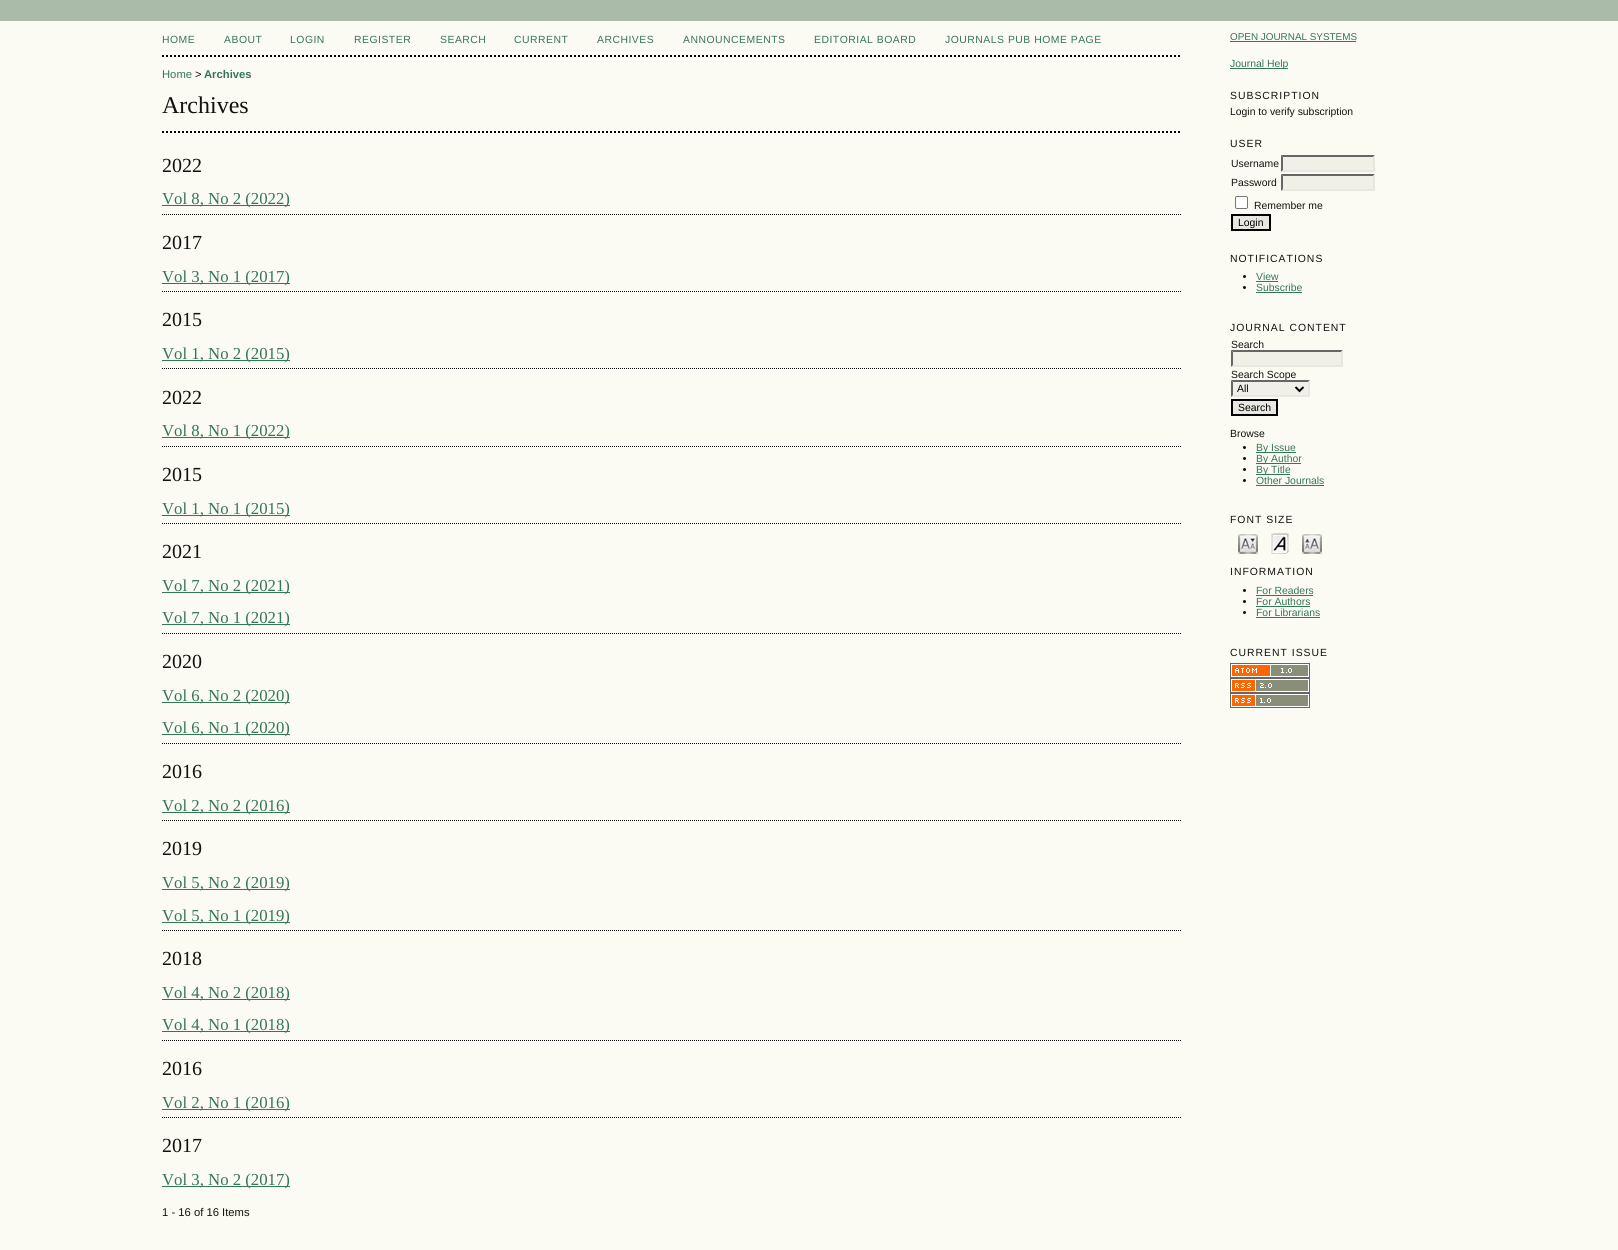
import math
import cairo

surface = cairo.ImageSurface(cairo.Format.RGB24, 1618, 1250)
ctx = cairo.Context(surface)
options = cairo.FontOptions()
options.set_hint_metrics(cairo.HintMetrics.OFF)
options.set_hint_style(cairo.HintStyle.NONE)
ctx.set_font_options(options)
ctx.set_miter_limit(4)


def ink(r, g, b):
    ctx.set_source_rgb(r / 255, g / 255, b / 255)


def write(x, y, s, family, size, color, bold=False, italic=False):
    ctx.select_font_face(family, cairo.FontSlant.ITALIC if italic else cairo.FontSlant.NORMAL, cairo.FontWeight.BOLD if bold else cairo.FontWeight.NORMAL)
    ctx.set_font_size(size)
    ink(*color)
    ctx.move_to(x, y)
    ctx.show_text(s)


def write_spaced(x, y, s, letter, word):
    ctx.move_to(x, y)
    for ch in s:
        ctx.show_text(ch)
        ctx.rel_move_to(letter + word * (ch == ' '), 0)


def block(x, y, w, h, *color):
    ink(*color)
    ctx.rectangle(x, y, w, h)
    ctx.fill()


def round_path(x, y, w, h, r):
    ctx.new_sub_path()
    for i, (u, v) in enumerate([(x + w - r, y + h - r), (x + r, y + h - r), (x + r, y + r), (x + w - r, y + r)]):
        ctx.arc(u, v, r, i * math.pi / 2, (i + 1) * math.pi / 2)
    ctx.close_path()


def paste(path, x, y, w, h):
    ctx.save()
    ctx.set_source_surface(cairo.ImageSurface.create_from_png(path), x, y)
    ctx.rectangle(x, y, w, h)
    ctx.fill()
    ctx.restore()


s1 = dict(family="Liberation Sans", size=11.25, color=(51, 119, 85))
s2 = dict(family="Liberation Sans", size=11.25, color=(17, 17, 17))
s3 = dict(family="Liberation Sans", size=11.25, color=(51, 119, 85), bold=True)
s4 = dict(family="Liberation Serif", size=24, color=(17, 17, 17))
s5 = dict(family="Liberation Serif", size=20, color=(17, 17, 17))
s6 = dict(family="Liberation Serif", size=16.75, color=(51, 119, 85))
s7 = dict(family="Liberation Sans", size=9.9, color=(51, 119, 85))
s8 = dict(family="Liberation Sans", size=10.4, color=(51, 119, 85))
s9 = dict(family="Liberation Sans", size=10.4, color=(17, 17, 17))
s10 = dict(family="Liberation Sans", size=10.4, color=(0, 0, 0))

ink(251, 251, 243)
ctx.paint()
block(0, 0, 1618, 21, 170, 187, 170)
ctx.new_path()
ctx.move_to(162, 56)
ctx.line_to(1181, 56)
ink(0, 0, 0)
ctx.set_dash([2, 2])
ctx.stroke()
ctx.select_font_face("Liberation Sans")
ctx.set_font_size(10.4)
ink(51, 119, 85)
write_spaced(162, 43, "HOME", 0.5, 0)
write_spaced(224, 43, "ABOUT", 0.5, 0)
write_spaced(290, 43, "LOGIN", 0.5, 0)
write_spaced(354, 43, "REGISTER", 0.5, 0)
write_spaced(440, 43, "SEARCH", 0.5, 0)
write_spaced(514, 43, "CURRENT", 0.5, 0)
write_spaced(597, 43, "ARCHIVES", 0.5, 0)
write_spaced(683, 43, "ANNOUNCEMENTS", 0.5, 0)
write_spaced(814, 43, "EDITORIAL BOARD", 0.5, 0)
write_spaced(945, 43, "JOURNALS PUB HOME PAGE", 0.5, 0)
write(162, 78, "Home", **s1)
write(195, 78, ">", **s2)
write(204, 78, "Archives", **s3)
write(162, 113, "Archives", **s4)
ctx.new_path()
ctx.move_to(162, 132)
ctx.line_to(1181, 132)
ink(0, 0, 0)
ctx.stroke()
write(162, 172, "2022", **s5)
block(162, 205, 128, 1, 51, 119, 85)
write(162, 204, "Vol 8, No 2 (2022)", **s6)
ctx.new_path()
ctx.move_to(162, 214.5)
ctx.line_to(1181, 214.5)
ink(0, 0, 0)
ctx.set_line_width(1)
ctx.set_dash([1, 1])
ctx.stroke()
write(162, 249, "2017", **s5)
block(162, 283, 128, 1, 51, 119, 85)
write(162, 282, "Vol 3, No 1 (2017)", **s6)
ctx.new_path()
ctx.move_to(162, 291.5)
ctx.line_to(1181, 291.5)
ink(0, 0, 0)
ctx.stroke()
write(162, 326, "2015", **s5)
block(162, 360, 128, 1, 51, 119, 85)
write(162, 359, "Vol 1, No 2 (2015)", **s6)
ctx.new_path()
ctx.move_to(162, 368.5)
ctx.line_to(1181, 368.5)
ink(0, 0, 0)
ctx.stroke()
write(162, 404, "2022", **s5)
block(162, 437, 128, 1, 51, 119, 85)
write(162, 436, "Vol 8, No 1 (2022)", **s6)
ctx.new_path()
ctx.move_to(162, 446.5)
ctx.line_to(1181, 446.5)
ink(0, 0, 0)
ctx.stroke()
write(162, 481, "2015", **s5)
block(162, 515, 128, 1, 51, 119, 85)
write(162, 514, "Vol 1, No 1 (2015)", **s6)
ctx.new_path()
ctx.move_to(162, 523.5)
ctx.line_to(1181, 523.5)
ink(0, 0, 0)
ctx.stroke()
write(162, 558, "2021", **s5)
block(162, 592, 128, 1, 51, 119, 85)
write(162, 591, "Vol 7, No 2 (2021)", **s6)
block(162, 624, 128, 1, 51, 119, 85)
write(162, 623, "Vol 7, No 1 (2021)", **s6)
ctx.new_path()
ctx.move_to(162, 633.5)
ctx.line_to(1181, 633.5)
ink(0, 0, 0)
ctx.stroke()
write(162, 668, "2020", **s5)
block(162, 702, 128, 1, 51, 119, 85)
write(162, 701, "Vol 6, No 2 (2020)", **s6)
block(162, 734, 128, 1, 51, 119, 85)
write(162, 733, "Vol 6, No 1 (2020)", **s6)
ctx.new_path()
ctx.move_to(162, 743.5)
ctx.line_to(1181, 743.5)
ink(0, 0, 0)
ctx.stroke()
write(162, 778, "2016", **s5)
block(162, 812, 128, 1, 51, 119, 85)
write(162, 811, "Vol 2, No 2 (2016)", **s6)
ctx.new_path()
ctx.move_to(162, 820.5)
ctx.line_to(1181, 820.5)
ink(0, 0, 0)
ctx.stroke()
write(162, 855, "2019", **s5)
block(162, 889, 128, 1, 51, 119, 85)
write(162, 888, "Vol 5, No 2 (2019)", **s6)
block(162, 922, 128, 1, 51, 119, 85)
write(162, 921, "Vol 5, No 1 (2019)", **s6)
ctx.new_path()
ctx.move_to(162, 930.5)
ctx.line_to(1181, 930.5)
ink(0, 0, 0)
ctx.stroke()
write(162, 965, "2018", **s5)
block(162, 999, 128, 1, 51, 119, 85)
write(162, 998, "Vol 4, No 2 (2018)", **s6)
block(162, 1031, 128, 1, 51, 119, 85)
write(162, 1030, "Vol 4, No 1 (2018)", **s6)
ctx.new_path()
ctx.move_to(162, 1040.5)
ctx.line_to(1181, 1040.5)
ink(0, 0, 0)
ctx.stroke()
write(162, 1075, "2016", **s5)
block(162, 1109, 128, 1, 51, 119, 85)
write(162, 1108, "Vol 2, No 1 (2016)", **s6)
ctx.new_path()
ctx.move_to(162, 1117.5)
ctx.line_to(1181, 1117.5)
ink(0, 0, 0)
ctx.stroke()
write(162, 1152, "2017", **s5)
block(162, 1186, 128, 1, 51, 119, 85)
write(162, 1185, "Vol 3, No 2 (2017)", **s6)
write(162, 1216, "1 - 16 of 16 Items", **s2)
write(1230, 40, "OPEN JOURNAL SYSTEMS", **s7)
block(1230, 41, 126, 1, 51, 119, 85)
block(1230, 68, 58, 1, 51, 119, 85)
write(1230, 67, "Journal Help", **s8)
ink(17, 17, 17)
write_spaced(1230, 99, "SUBSCRIPTION", 1, 0)
write(1230, 115, "Login to verify subscription", **s9)
write_spaced(1230, 147, "USER", 1, 0)
write(1231, 167, "Username", **s9)
block(1281, 155, 94, 17, 240, 240, 232)
ink(102, 102, 102)
ctx.new_path()
ctx.move_to(1281, 155)
ctx.line_to(1375, 155)
ctx.line_to(1373, 157)
ctx.line_to(1283, 157)
ctx.close_path()
ctx.fill()
ink(232, 232, 225)
ctx.new_path()
ctx.move_to(1375, 155)
ctx.line_to(1375, 172)
ctx.line_to(1373, 170)
ctx.line_to(1373, 157)
ctx.close_path()
ctx.fill()
ctx.new_path()
ctx.move_to(1375, 172)
ctx.line_to(1281, 172)
ctx.line_to(1283, 170)
ctx.line_to(1373, 170)
ctx.close_path()
ctx.fill()
ink(102, 102, 102)
ctx.new_path()
ctx.move_to(1281, 172)
ctx.line_to(1281, 155)
ctx.line_to(1283, 157)
ctx.line_to(1283, 170)
ctx.close_path()
ctx.fill()
write(1231, 186, "Password", **s9)
block(1281, 174, 94, 17, 240, 240, 232)
ink(102, 102, 102)
ctx.new_path()
ctx.move_to(1281, 174)
ctx.line_to(1375, 174)
ctx.line_to(1373, 176)
ctx.line_to(1283, 176)
ctx.close_path()
ctx.fill()
ink(232, 232, 225)
ctx.new_path()
ctx.move_to(1375, 174)
ctx.line_to(1375, 191)
ctx.line_to(1373, 189)
ctx.line_to(1373, 176)
ctx.close_path()
ctx.fill()
ctx.new_path()
ctx.move_to(1375, 191)
ctx.line_to(1281, 191)
ctx.line_to(1283, 189)
ctx.line_to(1373, 189)
ctx.close_path()
ctx.fill()
ink(102, 102, 102)
ctx.new_path()
ctx.move_to(1281, 191)
ctx.line_to(1281, 174)
ctx.line_to(1283, 176)
ctx.line_to(1283, 189)
ctx.close_path()
ctx.fill()
ink(255, 255, 255)
round_path(1235.5, 196.5, 12, 12, 1.5)
ctx.fill_preserve()
ink(118, 118, 118)
ctx.set_dash([])
ctx.stroke()
write(1254, 209, "Remember me", **s9)
ink(232, 232, 225)
ctx.rectangle(1232, 215, 38, 15)
ctx.fill_preserve()
ink(0, 0, 0)
ctx.set_line_width(2)
ctx.stroke()
write(1238, 226, "Login", **s10)
ink(17, 17, 17)
write_spaced(1230, 262, "NOTIFICATIONS", 1, 0)
ctx.new_path()
ctx.arc(1244.5, 276.5, 1.5, 0, 2 * math.pi)
ctx.fill()
write(1256, 280, "View", **s8)
block(1256, 281, 22, 1, 51, 119, 85)
ink(17, 17, 17)
ctx.new_path()
ctx.arc(1244.5, 287.5, 1.5, 0, 2 * math.pi)
ctx.fill()
write(1256, 291, "Subscribe", **s8)
block(1256, 292, 46, 1, 51, 119, 85)
ink(17, 17, 17)
write_spaced(1230, 331, "JOURNAL CONTENT", 1, 0)
write(1231, 348, "Search", **s9)
block(1231, 350, 112, 17, 240, 240, 232)
ink(102, 102, 102)
ctx.new_path()
ctx.move_to(1231, 350)
ctx.line_to(1343, 350)
ctx.line_to(1341, 352)
ctx.line_to(1233, 352)
ctx.close_path()
ctx.fill()
ink(232, 232, 225)
ctx.new_path()
ctx.move_to(1343, 350)
ctx.line_to(1343, 367)
ctx.line_to(1341, 365)
ctx.line_to(1341, 352)
ctx.close_path()
ctx.fill()
ctx.new_path()
ctx.move_to(1343, 367)
ctx.line_to(1231, 367)
ctx.line_to(1233, 365)
ctx.line_to(1341, 365)
ctx.close_path()
ctx.fill()
ink(102, 102, 102)
ctx.new_path()
ctx.move_to(1231, 367)
ctx.line_to(1231, 350)
ctx.line_to(1233, 352)
ctx.line_to(1233, 365)
ctx.close_path()
ctx.fill()
write(1231, 378, "Search Scope", **s9)
block(1231, 380, 79, 17, 240, 240, 232)
ink(102, 102, 102)
ctx.new_path()
ctx.move_to(1231, 380)
ctx.line_to(1310, 380)
ctx.line_to(1308, 382)
ctx.line_to(1233, 382)
ctx.close_path()
ctx.fill()
ink(232, 232, 225)
ctx.new_path()
ctx.move_to(1310, 380)
ctx.line_to(1310, 397)
ctx.line_to(1308, 395)
ctx.line_to(1308, 382)
ctx.close_path()
ctx.fill()
ctx.new_path()
ctx.move_to(1310, 397)
ctx.line_to(1231, 397)
ctx.line_to(1233, 395)
ctx.line_to(1308, 395)
ctx.close_path()
ctx.fill()
ink(102, 102, 102)
ctx.new_path()
ctx.move_to(1231, 397)
ctx.line_to(1231, 380)
ctx.line_to(1233, 382)
ctx.line_to(1233, 395)
ctx.close_path()
ctx.fill()
ctx.new_path()
ctx.move_to(1295.5, 387)
ctx.line_to(1299.5, 391)
ctx.line_to(1303.5, 387)
ink(0, 0, 0)
ctx.stroke()
write(1237, 392, "All", **s10)
ink(232, 232, 225)
ctx.rectangle(1232, 400, 45, 15)
ctx.fill_preserve()
ink(0, 0, 0)
ctx.stroke()
write(1238, 411, "Search", **s10)
write(1230, 437, "Browse", **s9)
ctx.new_path()
ctx.arc(1244.5, 447.5, 1.5, 0, 2 * math.pi)
ctx.fill()
block(1256, 452, 40, 1, 51, 119, 85)
write(1256, 451, "By Issue", **s8)
ink(17, 17, 17)
ctx.new_path()
ctx.arc(1244.5, 458.5, 1.5, 0, 2 * math.pi)
ctx.fill()
block(1256, 463, 45, 1, 51, 119, 85)
write(1256, 462, "By Author", **s8)
ink(17, 17, 17)
ctx.new_path()
ctx.arc(1244.5, 469.5, 1.5, 0, 2 * math.pi)
ctx.fill()
block(1256, 474, 34, 1, 51, 119, 85)
write(1256, 473, "By Title", **s8)
ink(17, 17, 17)
ctx.new_path()
ctx.arc(1244.5, 480.5, 1.5, 0, 2 * math.pi)
ctx.fill()
write(1256, 484, "Other Journals", **s8)
block(1256, 485, 68, 1, 51, 119, 85)
ink(17, 17, 17)
write_spaced(1230, 523, "FONT SIZE", 1, 0)
paste("pic1.png", 1238, 534, 20, 20)
paste("pic2.png", 1271, 533, 18, 21)
paste("pic3.png", 1302, 534, 20, 20)
write_spaced(1230, 575, "INFORMATION", 1, 0)
ctx.new_path()
ctx.arc(1244.5, 590.5, 1.5, 0, 2 * math.pi)
ctx.fill()
write(1256, 594, "For Readers", **s8)
block(1256, 595, 57, 1, 51, 119, 85)
ink(17, 17, 17)
ctx.new_path()
ctx.arc(1244.5, 601.5, 1.5, 0, 2 * math.pi)
ctx.fill()
write(1256, 605, "For Authors", **s8)
block(1256, 606, 54, 1, 51, 119, 85)
ink(17, 17, 17)
ctx.new_path()
ctx.arc(1244.5, 612.5, 1.5, 0, 2 * math.pi)
ctx.fill()
write(1256, 616, "For Librarians", **s8)
block(1256, 617, 64, 1, 51, 119, 85)
ink(17, 17, 17)
write_spaced(1230, 656, "CURRENT ISSUE", 1, 0)
paste("pic4.png", 1230, 663, 80, 15)
paste("pic5.png", 1230, 678, 80, 15)
paste("pic6.png", 1230, 693, 80, 15)
surface.write_to_png("screenshot.png")
